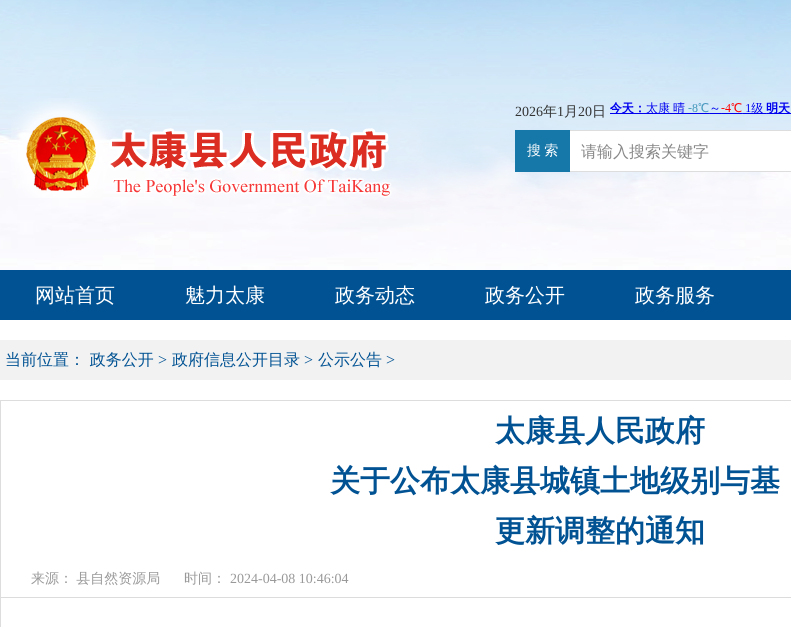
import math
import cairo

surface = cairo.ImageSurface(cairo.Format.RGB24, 791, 627)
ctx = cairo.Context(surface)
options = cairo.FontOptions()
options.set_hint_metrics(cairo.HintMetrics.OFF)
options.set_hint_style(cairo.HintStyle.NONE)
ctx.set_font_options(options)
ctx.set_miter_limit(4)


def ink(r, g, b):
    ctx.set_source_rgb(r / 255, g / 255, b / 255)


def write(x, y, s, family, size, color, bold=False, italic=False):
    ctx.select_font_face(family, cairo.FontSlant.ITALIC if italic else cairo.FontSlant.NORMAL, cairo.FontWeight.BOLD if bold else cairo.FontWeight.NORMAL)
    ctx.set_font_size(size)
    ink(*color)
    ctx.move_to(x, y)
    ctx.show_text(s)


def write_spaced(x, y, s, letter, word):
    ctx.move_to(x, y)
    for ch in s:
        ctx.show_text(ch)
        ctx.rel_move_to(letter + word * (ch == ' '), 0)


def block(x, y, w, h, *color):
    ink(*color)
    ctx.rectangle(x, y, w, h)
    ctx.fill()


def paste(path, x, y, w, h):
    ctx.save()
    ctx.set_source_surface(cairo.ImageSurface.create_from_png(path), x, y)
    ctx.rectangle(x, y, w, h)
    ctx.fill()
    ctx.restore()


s1 = dict(family="Liberation Serif", size=14, color=(51, 51, 51))
s2 = dict(family="WenQuanYi Zen Hei Medium", size=14, color=(51, 51, 51))
s3 = dict(family="WenQuanYi Zen Hei Medium", size=16, color=(136, 136, 136))
s4 = dict(family="WenQuanYi Zen Hei Medium", size=20, color=(255, 255, 255))
s5 = dict(family="WenQuanYi Zen Hei Medium", size=16, color=(1, 82, 147))
s6 = dict(family="Liberation Serif", size=16, color=(1, 82, 147))
s7 = dict(family="WenQuanYi Zen Hei", size=30, color=(1, 82, 147), bold=True)
s8 = dict(family="WenQuanYi Zen Hei Medium", size=14, color=(153, 153, 153))
s9 = dict(family="Liberation Serif", size=14, color=(153, 153, 153))

ink(255, 255, 255)
ctx.paint()
paste("pic1.png", 0, 0, 791, 270)
paste("pic2.png", 11, 98, 381, 100)
write(515, 116, "2026", **s1)
write(543, 116, "年", **s2)
write(557, 116, "1", **s1)
write(564, 116, "月", **s2)
write(578, 116, "20", **s1)
write(592, 116, "日", **s2)
paste("pic3.png", 610, 101, 181, 13)
block(570, 131, 221, 40, 255, 255, 255)
ctx.rectangle(515.5, 130.5, 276, 41)
ink(221, 221, 221)
ctx.set_line_width(1)
ctx.stroke()
block(515, 130, 55, 42, 22, 119, 169)
ink(255, 255, 255)
write_spaced(527, 155, "搜 索", 0, -1)
write(581, 157, "请输入搜索关键字", **s3)
block(0, 270, 791, 50, 1, 82, 147)
write(35, 302, "网站首页", **s4)
write(185, 302, "魅力太康", **s4)
write(335, 302, "政务动态", **s4)
write(485, 302, "政务公开", **s4)
write(635, 302, "政务服务", **s4)
block(0, 340, 791, 40, 242, 242, 242)
write(5, 365, "当前位置： 政务公开", **s5)
write(158, 365, ">", **s6)
write(172, 365, "政府信息公开目录", **s5)
write(304, 365, ">", **s6)
write(318, 365, "公示公告", **s5)
write(386, 365, ">", **s6)
ctx.rectangle(0.5, 400.5, 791, 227)
ink(221, 221, 221)
ctx.stroke()
write(495, 441, "太康县人民政府", **s7)
write(330, 491, "关于公布太康县城镇土地级别与基", **s7)
write(495, 541, "更新调整的通知", **s7)
block(1, 597, 790, 1, 220, 220, 220)
ctx.select_font_face("WenQuanYi Zen Hei Medium")
ctx.set_font_size(14)
ink(153, 153, 153)
write_spaced(31, 583, "来源： 县自然资源局", 0, -1)
write(184, 583, "时间：", **s8)
write(230, 583, "2024-04-08 10:46:04", **s9)
surface.write_to_png("screenshot.png")
